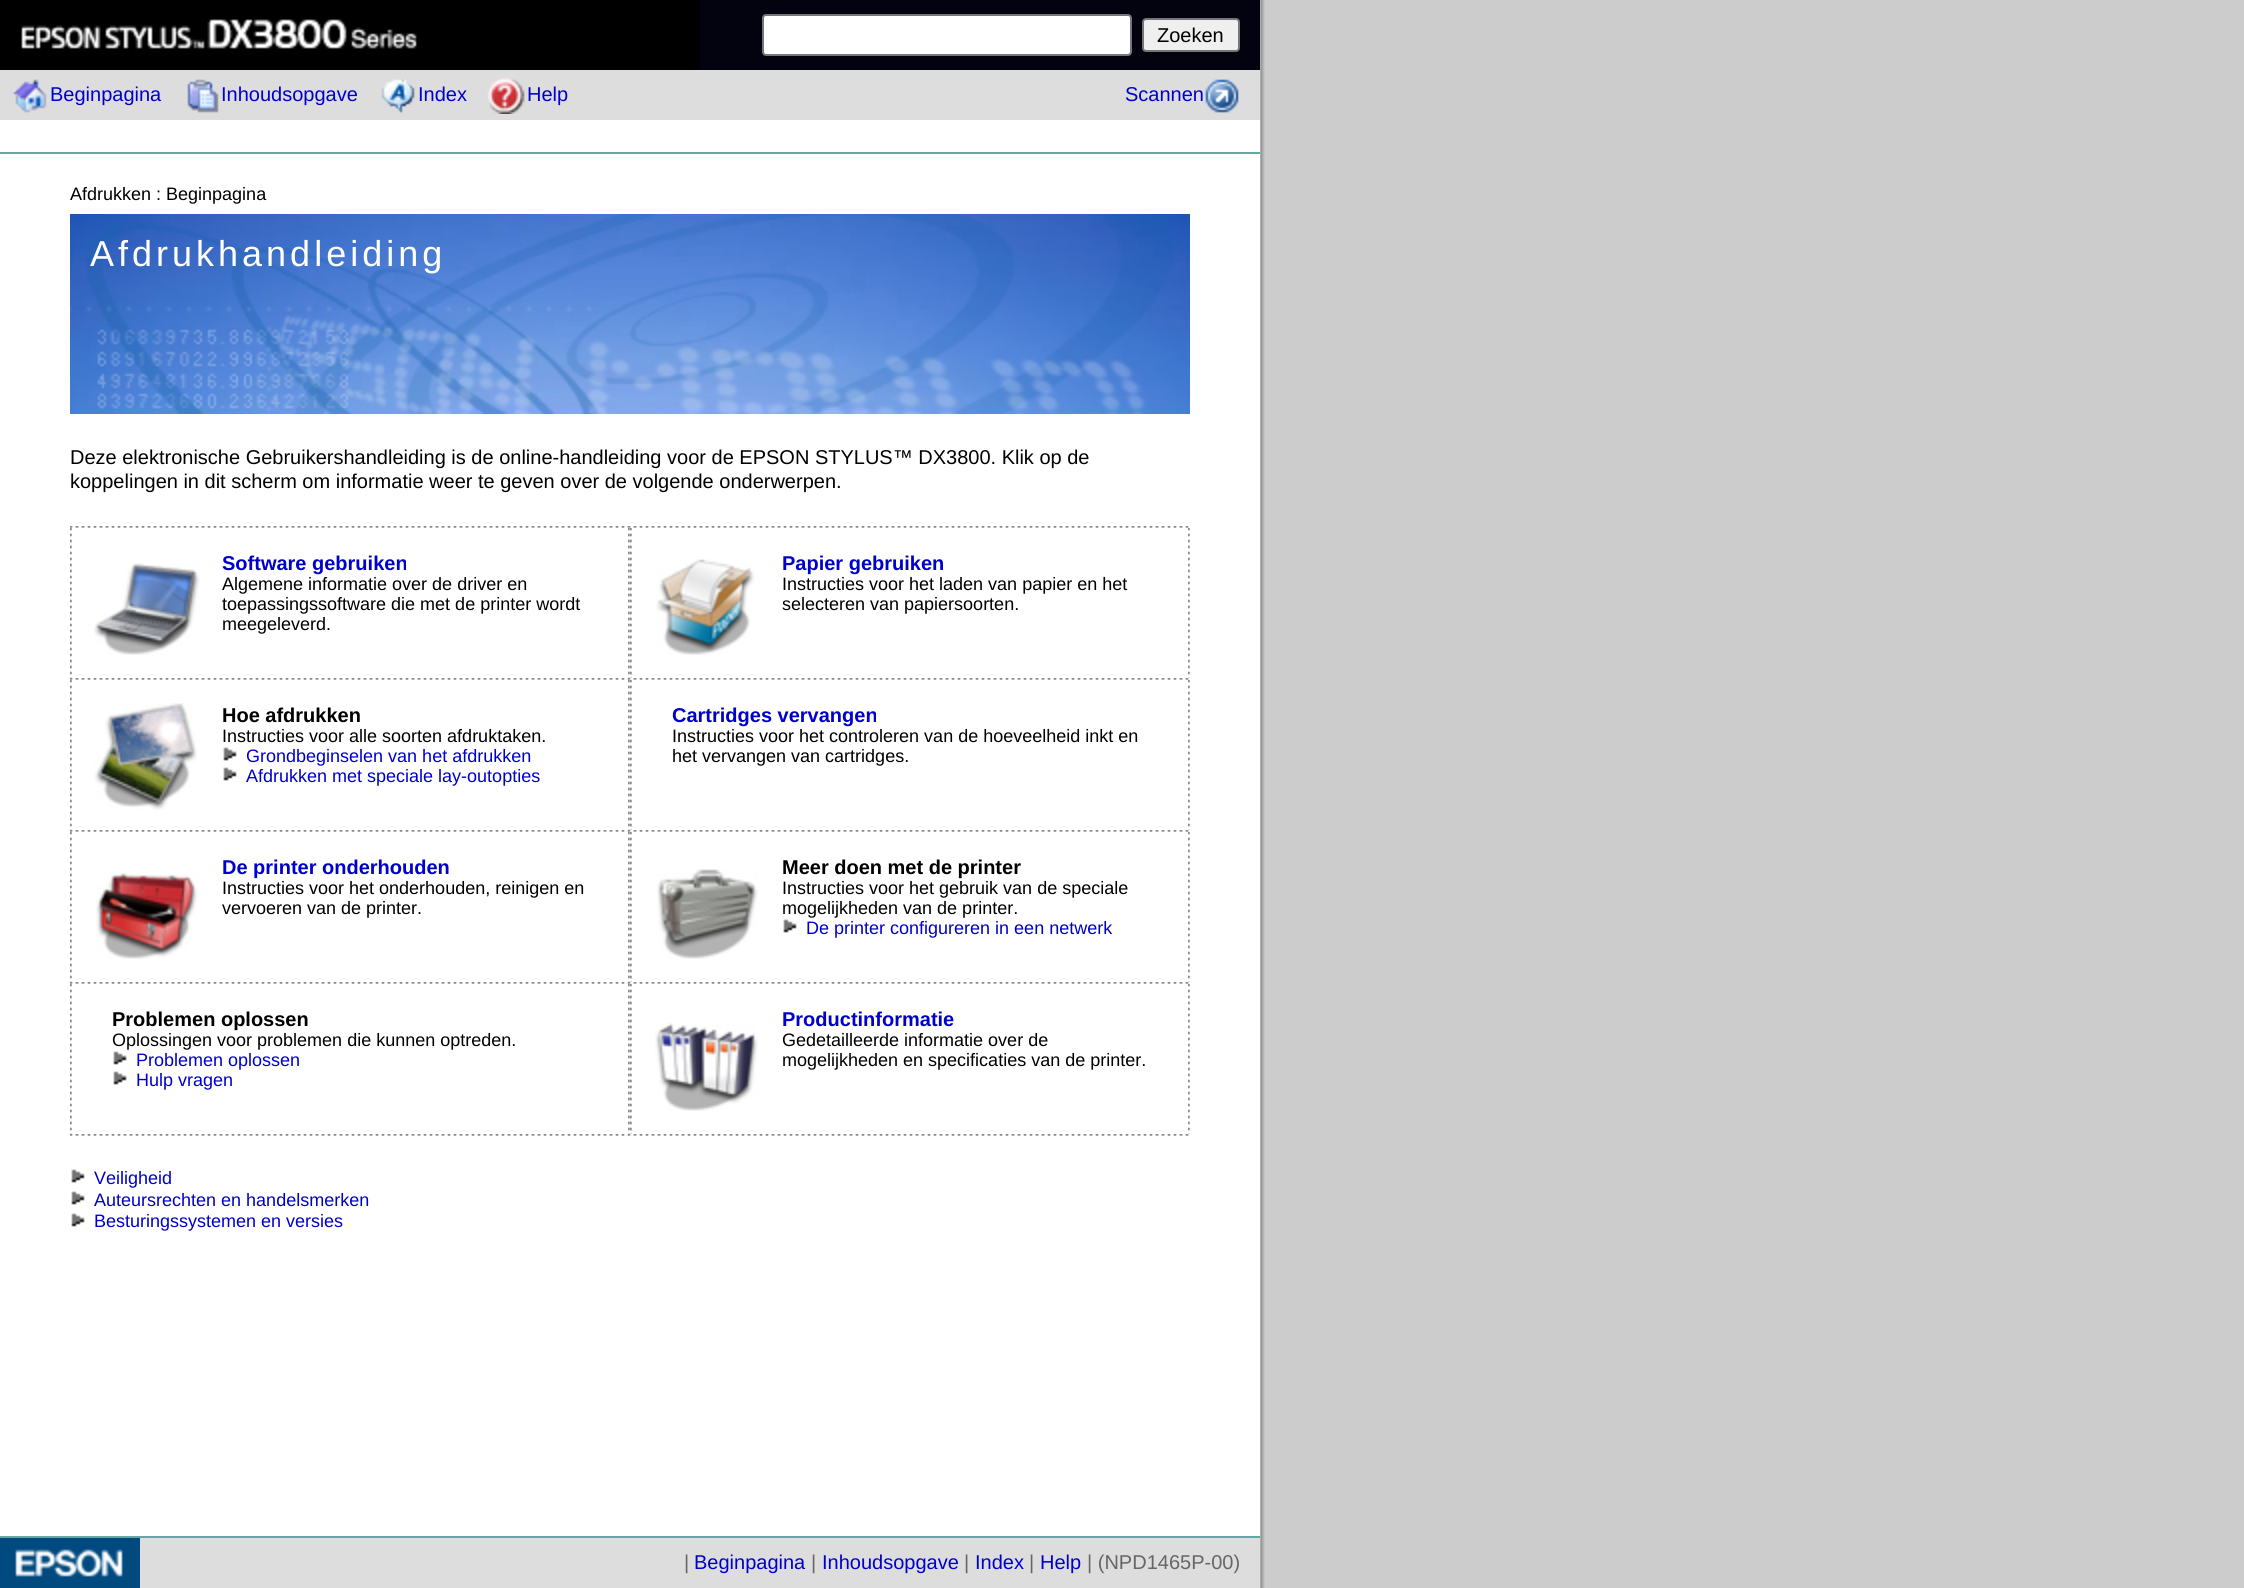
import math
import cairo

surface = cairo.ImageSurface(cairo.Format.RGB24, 2244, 1588)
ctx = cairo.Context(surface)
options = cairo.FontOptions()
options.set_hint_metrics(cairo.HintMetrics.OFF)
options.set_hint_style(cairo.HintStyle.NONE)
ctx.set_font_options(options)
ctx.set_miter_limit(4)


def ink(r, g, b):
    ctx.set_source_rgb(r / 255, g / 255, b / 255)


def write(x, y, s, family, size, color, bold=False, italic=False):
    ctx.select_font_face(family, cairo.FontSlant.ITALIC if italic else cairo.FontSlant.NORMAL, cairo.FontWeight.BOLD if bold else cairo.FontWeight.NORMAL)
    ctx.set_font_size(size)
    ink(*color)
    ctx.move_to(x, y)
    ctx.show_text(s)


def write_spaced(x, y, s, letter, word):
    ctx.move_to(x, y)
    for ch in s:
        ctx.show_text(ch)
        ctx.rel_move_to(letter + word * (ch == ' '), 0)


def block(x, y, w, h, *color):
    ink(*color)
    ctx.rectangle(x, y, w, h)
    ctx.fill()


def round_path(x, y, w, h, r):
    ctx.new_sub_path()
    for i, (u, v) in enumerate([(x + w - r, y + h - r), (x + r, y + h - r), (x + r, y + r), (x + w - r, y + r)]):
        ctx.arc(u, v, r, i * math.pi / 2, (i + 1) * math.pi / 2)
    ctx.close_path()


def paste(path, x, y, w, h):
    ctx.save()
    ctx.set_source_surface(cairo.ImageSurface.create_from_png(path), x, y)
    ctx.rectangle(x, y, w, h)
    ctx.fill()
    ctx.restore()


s1 = dict(family="Liberation Sans", size=20, color=(0, 0, 0))
s2 = dict(family="Liberation Sans", size=20, color=(0, 0, 205))
s3 = dict(family="Liberation Sans", size=18, color=(0, 0, 0))
s4 = dict(family="Liberation Sans", size=20, color=(0, 0, 205), bold=True)
s5 = dict(family="Liberation Sans", size=20, color=(0, 0, 0), bold=True)
s6 = dict(family="Liberation Sans", size=18, color=(0, 0, 205))
s7 = dict(family="Liberation Sans", size=20, color=(102, 102, 102))

ink(255, 255, 255)
ctx.paint()
paste("pic1.png", 1260, 0, 984, 1588)
paste("pic2.png", 0, 0, 700, 70)
block(700, 0, 560, 70, 3, 3, 15)
ink(255, 255, 255)
round_path(763, 15, 368, 40, 3)
ctx.fill_preserve()
ink(118, 118, 118)
ctx.stroke()
ink(239, 239, 239)
round_path(1143, 19, 96, 32, 3)
ctx.fill_preserve()
ink(118, 118, 118)
ctx.stroke()
write(1157, 42, "Zoeken", **s1)
block(0, 70, 1260, 50, 221, 221, 221)
paste("pic3.png", 13, 79, 34, 34)
write(50, 101, "Beginpagina", **s2)
paste("pic4.png", 187, 79, 32, 34)
write(221, 101, "Inhoudsopgave", **s2)
paste("pic5.png", 381, 79, 34, 34)
write(418, 101, "Index", **s2)
paste("pic6.png", 487, 78, 38, 36)
write(527, 101, "Help", **s2)
write(1125, 101, "Scannen", **s2)
paste("pic7.png", 1205, 79, 34, 34)
block(0, 152, 1260, 2, 102, 166, 166)
write(70, 200, "Afdrukken : Beginpagina", **s3)
paste("pic8.png", 70, 214, 1120, 200)
ctx.set_font_size(36)
ink(255, 255, 255)
write_spaced(90, 266, "Afdrukhandleiding", 4, 0)
write(70, 464, "Deze elektronische Gebruikershandleiding is de online-handleiding voor de EPSON STYLUS™ DX3800. Klik op de", **s1)
write(70, 488, "koppelingen in dit scherm om informatie weer te geven over de volgende onderwerpen.", **s1)
paste("pic9.png", 70, 526, 1119, 2)
paste("pic10.png", 70, 528, 2, 150)
paste("pic11.png", 94, 563, 106, 92)
write(222, 570, "Software gebruiken", **s4)
write(222, 590, "Algemene informatie over de driver en", **s3)
write(222, 610, "toepassingssoftware die met de printer wordt", **s3)
write(222, 630, "meegeleverd.", **s3)
paste("pic10.png", 628, 528, 2, 150)
paste("pic10.png", 630, 528, 2, 150)
paste("pic12.png", 656, 559, 99, 96)
write(782, 570, "Papier gebruiken", **s4)
write(782, 590, "Instructies voor het laden van papier en het", **s3)
write(782, 610, "selecteren van papiersoorten.", **s3)
paste("pic10.png", 1188, 528, 2, 150)
paste("pic9.png", 70, 678, 1119, 2)
paste("pic10.png", 70, 680, 2, 150)
paste("pic13.png", 94, 703, 103, 107)
write(222, 722, "Hoe afdrukken", **s5)
write(222, 742, "Instructies voor alle soorten afdruktaken.", **s3)
paste("pic14.png", 223, 747, 14, 14)
write(246, 762, "Grondbeginselen van het afdrukken", **s6)
paste("pic14.png", 223, 767, 14, 14)
write(246, 782, "Afdrukken met speciale lay-outopties", **s6)
paste("pic10.png", 628, 680, 2, 150)
paste("pic10.png", 630, 680, 2, 150)
write(672, 722, "Cartridges vervangen", **s4)
write(672, 742, "Instructies voor het controleren van de hoeveelheid inkt en", **s3)
write(672, 762, "het vervangen van cartridges.", **s3)
paste("pic10.png", 1188, 680, 2, 150)
paste("pic9.png", 70, 830, 1119, 2)
paste("pic10.png", 70, 832, 2, 150)
paste("pic15.png", 96, 873, 102, 86)
write(222, 874, "De printer onderhouden", **s4)
write(222, 894, "Instructies voor het onderhouden, reinigen en", **s3)
write(222, 914, "vervoeren van de printer.", **s3)
paste("pic10.png", 628, 832, 2, 150)
paste("pic10.png", 630, 832, 2, 150)
paste("pic16.png", 657, 869, 101, 90)
write(782, 874, "Meer doen met de printer", **s5)
write(782, 894, "Instructies voor het gebruik van de speciale", **s3)
write(782, 914, "mogelijkheden van de printer.", **s3)
paste("pic14.png", 783, 919, 14, 14)
write(806, 934, "De printer configureren in een netwerk", **s6)
paste("pic10.png", 1188, 832, 2, 150)
paste("pic9.png", 70, 982, 1119, 2)
paste("pic10.png", 70, 984, 2, 150)
write(112, 1026, "Problemen oplossen", **s5)
write(112, 1046, "Oplossingen voor problemen die kunnen optreden.", **s3)
paste("pic14.png", 113, 1051, 14, 14)
write(136, 1066, "Problemen oplossen", **s6)
paste("pic14.png", 113, 1071, 14, 14)
write(136, 1086, "Hulp vragen", **s6)
paste("pic10.png", 628, 984, 2, 150)
paste("pic10.png", 630, 984, 2, 150)
paste("pic17.png", 655, 1023, 103, 88)
write(782, 1026, "Productinformatie", **s4)
write(782, 1046, "Gedetailleerde informatie over de", **s3)
write(782, 1066, "mogelijkheden en specificaties van de printer.", **s3)
paste("pic10.png", 1188, 984, 2, 150)
paste("pic9.png", 70, 1134, 1119, 2)
paste("pic14.png", 71, 1169, 14, 14)
write(94, 1184, "Veiligheid", **s6)
paste("pic14.png", 71, 1191, 14, 14)
write(94, 1206, "Auteursrechten en handelsmerken", **s6)
paste("pic14.png", 71, 1213, 14, 14)
write(94, 1227, "Besturingssystemen en versies", **s6)
block(0, 1536, 1260, 2, 102, 166, 166)
block(140, 1538, 1120, 50, 221, 221, 221)
paste("pic18.png", 0, 1538, 140, 50)
write(684, 1569, "|", **s7)
write(694, 1569, "Beginpagina", **s2)
write(811, 1569, "|", **s7)
write(822, 1569, "Inhoudsopgave", **s2)
write(964, 1569, "|", **s7)
write(975, 1569, "Index", **s2)
write(1029, 1569, "|", **s7)
write(1040, 1569, "Help", **s2)
write(1087, 1569, "| (NPD1465P-00)", **s7)
surface.write_to_png("screenshot.png")
